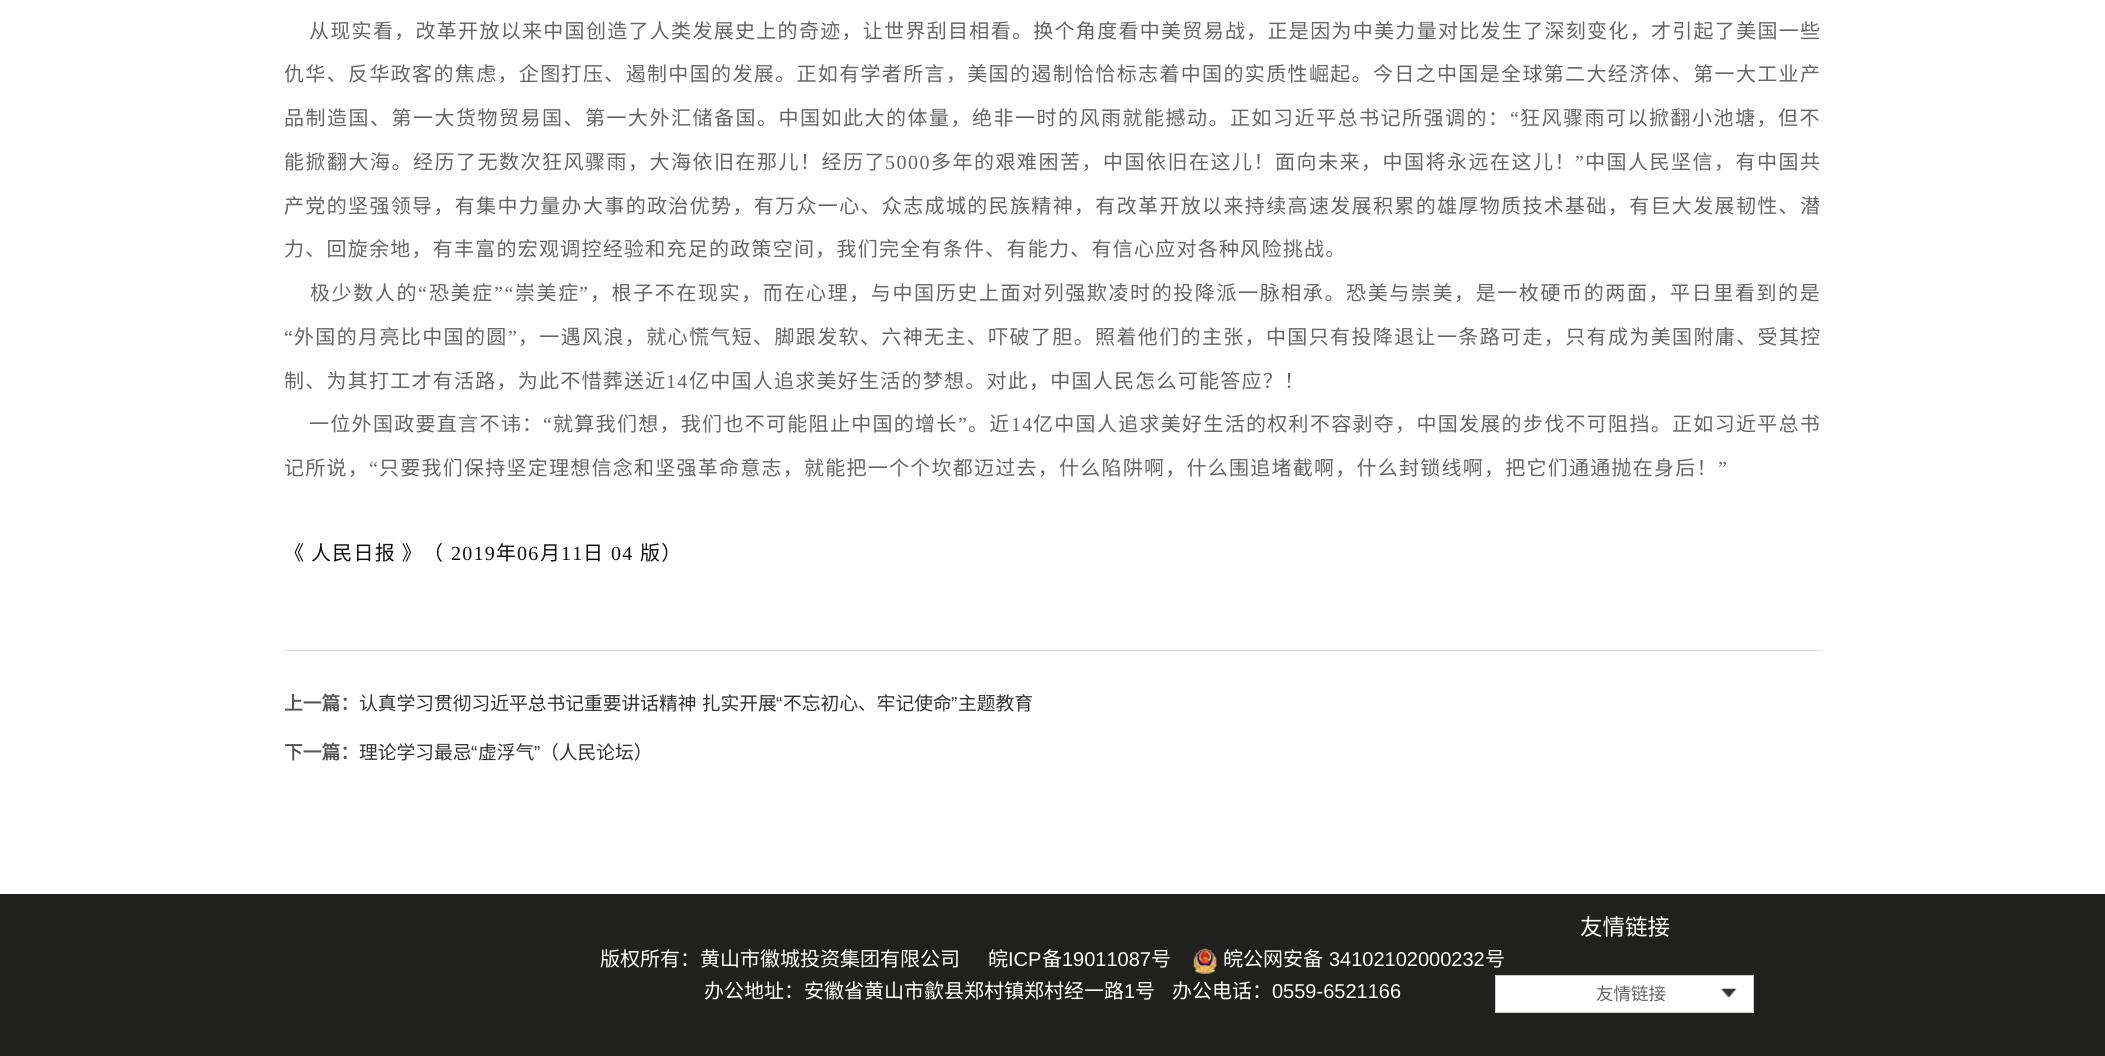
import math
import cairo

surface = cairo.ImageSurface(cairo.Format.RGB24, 2105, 1056)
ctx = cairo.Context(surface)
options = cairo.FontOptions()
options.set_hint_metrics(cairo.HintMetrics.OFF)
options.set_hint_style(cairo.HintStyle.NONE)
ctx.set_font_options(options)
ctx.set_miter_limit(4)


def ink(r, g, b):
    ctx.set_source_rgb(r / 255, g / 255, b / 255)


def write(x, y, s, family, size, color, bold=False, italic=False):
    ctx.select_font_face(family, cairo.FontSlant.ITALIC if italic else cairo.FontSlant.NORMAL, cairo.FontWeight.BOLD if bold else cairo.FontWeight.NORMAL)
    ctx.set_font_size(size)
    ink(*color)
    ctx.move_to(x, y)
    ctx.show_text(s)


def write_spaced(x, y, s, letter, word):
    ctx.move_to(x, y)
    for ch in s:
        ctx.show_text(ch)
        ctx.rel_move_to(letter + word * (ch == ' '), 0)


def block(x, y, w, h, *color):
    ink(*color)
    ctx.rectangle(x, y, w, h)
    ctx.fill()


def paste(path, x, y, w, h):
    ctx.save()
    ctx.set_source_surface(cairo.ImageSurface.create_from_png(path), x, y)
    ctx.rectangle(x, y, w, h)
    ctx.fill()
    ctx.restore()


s1 = dict(family="Noto Sans CJK SC", size=18.75, color=(85, 85, 85), bold=True)
s2 = dict(family="Liberation Sans", size=18.75, color=(51, 51, 51))
s3 = dict(family="Noto Sans CJK SC", size=18.75, color=(51, 51, 51))
s4 = dict(family="Noto Sans CJK SC", size=20, color=(255, 255, 255))
s5 = dict(family="Liberation Sans", size=20, color=(255, 255, 255))
s6 = dict(family="Noto Sans CJK SC", size=22.5, color=(255, 255, 255))
s7 = dict(family="Noto Sans CJK SC", size=17.5, color=(102, 102, 102))

ink(255, 255, 255)
ctx.paint()
ctx.select_font_face("Noto Sans CJK SC")
ctx.set_font_size(20)
ink(102, 102, 102)
write_spaced(309, 38, "从现实看，改革开放以来中国创造了人类发展史上的奇迹，让世界刮目相看。换个角度看中美贸易战，正是因为中美力量对比发生了深刻变化，才引起了美国一些", 1.3, 0)
write_spaced(284, 81, "仇华、反华政客的焦虑，企图打压、遏制中国的发展。正如有学者所言，美国的遏制恰恰标志着中国的实质性崛起。今日之中国是全球第二大经济体、第一大工业产", 1.35, 0)
write_spaced(284, 125, "品制造国、第一大货物贸易国、第一大外汇储备国。中国如此大的体量，绝非一时的风雨就能撼动。正如习近平总书记所强调的：", 1.5, 0)
ctx.select_font_face("Liberation Serif")
write_spaced(1510, 125, "“", 1.5, 0)
ctx.select_font_face("Noto Sans CJK SC")
write_spaced(1520, 125, "狂风骤雨可以掀翻小池塘，但不", 1.5, 0)
write_spaced(284, 169, "能掀翻大海。经历了无数次狂风骤雨，大海依旧在那儿！经历了", 1.5, 0)
ctx.select_font_face("Liberation Serif")
write_spaced(885, 169, "5000", 1.5, 0)
ctx.select_font_face("Noto Sans CJK SC")
write_spaced(931, 169, "多年的艰难困苦，中国依旧在这儿！面向未来，中国将永远在这儿！", 1.5, 0)
ctx.select_font_face("Liberation Serif")
write_spaced(1575, 169, "”", 1.5, 0)
ctx.select_font_face("Noto Sans CJK SC")
write_spaced(1585, 169, "中国人民坚信，有中国共", 1.5, 0)
write_spaced(284, 213, "产党的坚强领导，有集中力量办大事的政治优势，有万众一心、众志成城的民族精神，有改革开放以来持续高速发展积累的雄厚物质技术基础，有巨大发展韧性、潜", 1.35, 0)
write_spaced(284, 256, "力、回旋余地，有丰富的宏观调控经验和充足的政策空间，我们完全有条件、有能力、有信心应对各种风险挑战。", 1.25, 0)
write_spaced(310, 300, "极少数人的", 1.6, 0)
ctx.select_font_face("Liberation Serif")
write_spaced(418, 300, "“", 1.6, 0)
ctx.select_font_face("Noto Sans CJK SC")
write_spaced(429, 300, "恐美症", 1.6, 0)
ctx.select_font_face("Liberation Serif")
write_spaced(494, 300, "”“", 1.6, 0)
ctx.select_font_face("Noto Sans CJK SC")
write_spaced(515, 300, "崇美症", 1.6, 0)
ctx.select_font_face("Liberation Serif")
write_spaced(579, 300, "”", 1.6, 0)
ctx.select_font_face("Noto Sans CJK SC")
write_spaced(590, 300, "，根子不在现实，而在心理，与中国历史上面对列强欺凌时的投降派一脉相承。恐美与崇美，是一枚硬币的两面，平日里看到的是", 1.6, 0)
ctx.select_font_face("Liberation Serif")
write_spaced(284, 344, "“", 1.37, 0)
ctx.select_font_face("Noto Sans CJK SC")
write_spaced(294, 344, "外国的月亮比中国的圆", 1.37, 0)
ctx.select_font_face("Liberation Serif")
write_spaced(508, 344, "”", 1.37, 0)
ctx.select_font_face("Noto Sans CJK SC")
write_spaced(518, 344, "，一遇风浪，就心慌气短、脚跟发软、六神无主、吓破了胆。照着他们的主张，中国只有投降退让一条路可走，只有成为美国附庸、受其控", 1.37, 0)
write_spaced(284, 388, "制、为其打工才有活路，为此不惜葬送近", 1.25, 0)
ctx.select_font_face("Liberation Serif")
write_spaced(666, 388, "14", 1.25, 0)
ctx.select_font_face("Noto Sans CJK SC")
write_spaced(689, 388, "亿中国人追求美好生活的梦想。对此，中国人民怎么可能答应？！", 1.25, 0)
write_spaced(309, 431, "一位外国政要直言不讳：", 1.3, 0)
ctx.select_font_face("Liberation Serif")
write_spaced(543, 431, "“", 1.3, 0)
ctx.select_font_face("Noto Sans CJK SC")
write_spaced(553, 431, "就算我们想，我们也不可能阻止中国的增长", 1.3, 0)
ctx.select_font_face("Liberation Serif")
write_spaced(958, 431, "”", 1.3, 0)
ctx.select_font_face("Noto Sans CJK SC")
write_spaced(968, 431, "。近", 1.3, 0)
ctx.select_font_face("Liberation Serif")
write_spaced(1011, 431, "14", 1.3, 0)
ctx.select_font_face("Noto Sans CJK SC")
write_spaced(1033, 431, "亿中国人追求美好生活的权利不容剥夺，中国发展的步伐不可阻挡。正如习近平总书", 1.3, 0)
write_spaced(284, 475, "记所说，", 1.25, 0)
ctx.select_font_face("Liberation Serif")
write_spaced(369, 475, "“", 1.25, 0)
ctx.select_font_face("Noto Sans CJK SC")
write_spaced(379, 475, "只要我们保持坚定理想信念和坚强革命意志，就能把一个个坎都迈过去，什么陷阱啊，什么围追堵截啊，什么封锁线啊，把它们通通抛在身后！", 1.25, 0)
ctx.select_font_face("Liberation Serif")
write_spaced(1718, 475, "”", 1.25, 0)
ctx.select_font_face("Noto Sans CJK SC")
ink(15, 15, 15)
write_spaced(284, 560, "《 人民日报 》（", 1.25, 0)
ctx.select_font_face("Liberation Serif")
write_spaced(451, 560, "2019", 1.25, 0)
ctx.select_font_face("Noto Sans CJK SC")
write_spaced(496, 560, "年", 1.25, 0)
ctx.select_font_face("Liberation Serif")
write_spaced(517, 560, "06", 1.25, 0)
ctx.select_font_face("Noto Sans CJK SC")
write_spaced(540, 560, "月", 1.25, 0)
ctx.select_font_face("Liberation Serif")
write_spaced(561, 560, "11", 1.25, 0)
ctx.select_font_face("Noto Sans CJK SC")
write_spaced(583, 560, "日", 1.25, 0)
ctx.select_font_face("Liberation Serif")
write_spaced(611, 560, "04", 1.25, 0)
ctx.select_font_face("Noto Sans CJK SC")
write_spaced(640, 560, "版）", 1.25, 0)
block(284, 650, 1537, 1, 221, 221, 221)
write(284, 710, "上一篇：", **s1)
ctx.select_font_face("Noto Sans CJK SC")
ink(51, 51, 51)
write_spaced(359, 710, "认真学习贯彻习近平总书记重要讲话精神 扎实开展", 0, 1)
write(776, 710, "“", **s2)
write(783, 710, "不忘初心、牢记使命", **s3)
write(951, 710, "”", **s2)
write(958, 710, "主题教育", **s3)
write(284, 759, "下一篇：", **s1)
write(359, 759, "理论学习最忌", **s3)
write(471, 759, "“", **s2)
write(478, 759, "虚浮气", **s3)
write(534, 759, "”", **s2)
write(540, 759, "（人民论坛）", **s3)
block(0, 894, 2105, 162, 32, 32, 31)
write(600, 966, "版权所有：黄山市徽城投资集团有限公司", **s4)
write(988, 966, "皖", **s4)
write(1008, 966, "ICP", **s5)
write(1042, 966, "备", **s4)
write(1062, 966, "19011087", **s5)
write(1151, 966, "号", **s4)
paste("pic1.png", 1193, 948, 24, 26)
write(1223, 966, "皖公网安备", **s4)
write(1329, 966, "34102102000232", **s5)
write(1485, 966, "号", **s4)
write(1580, 935, "友情链接", **s6)
ctx.rectangle(1495.5, 975.5, 258, 37)
ctx.fill_preserve()
ink(205, 205, 205)
ctx.set_line_width(1)
ctx.stroke()
write(1596, 1000, "友情链接", **s7)
paste("pic2.png", 1721, 988, 16, 10)
write(704, 998, "办公地址：安徽省黄山市歙县郑村镇郑村经一路", **s4)
write(1124, 998, "1", **s5)
write(1135, 998, "号", **s4)
write(1172, 998, "办公电话：", **s4)
write(1272, 998, "0559-6521166", **s5)
surface.write_to_png("screenshot.png")
